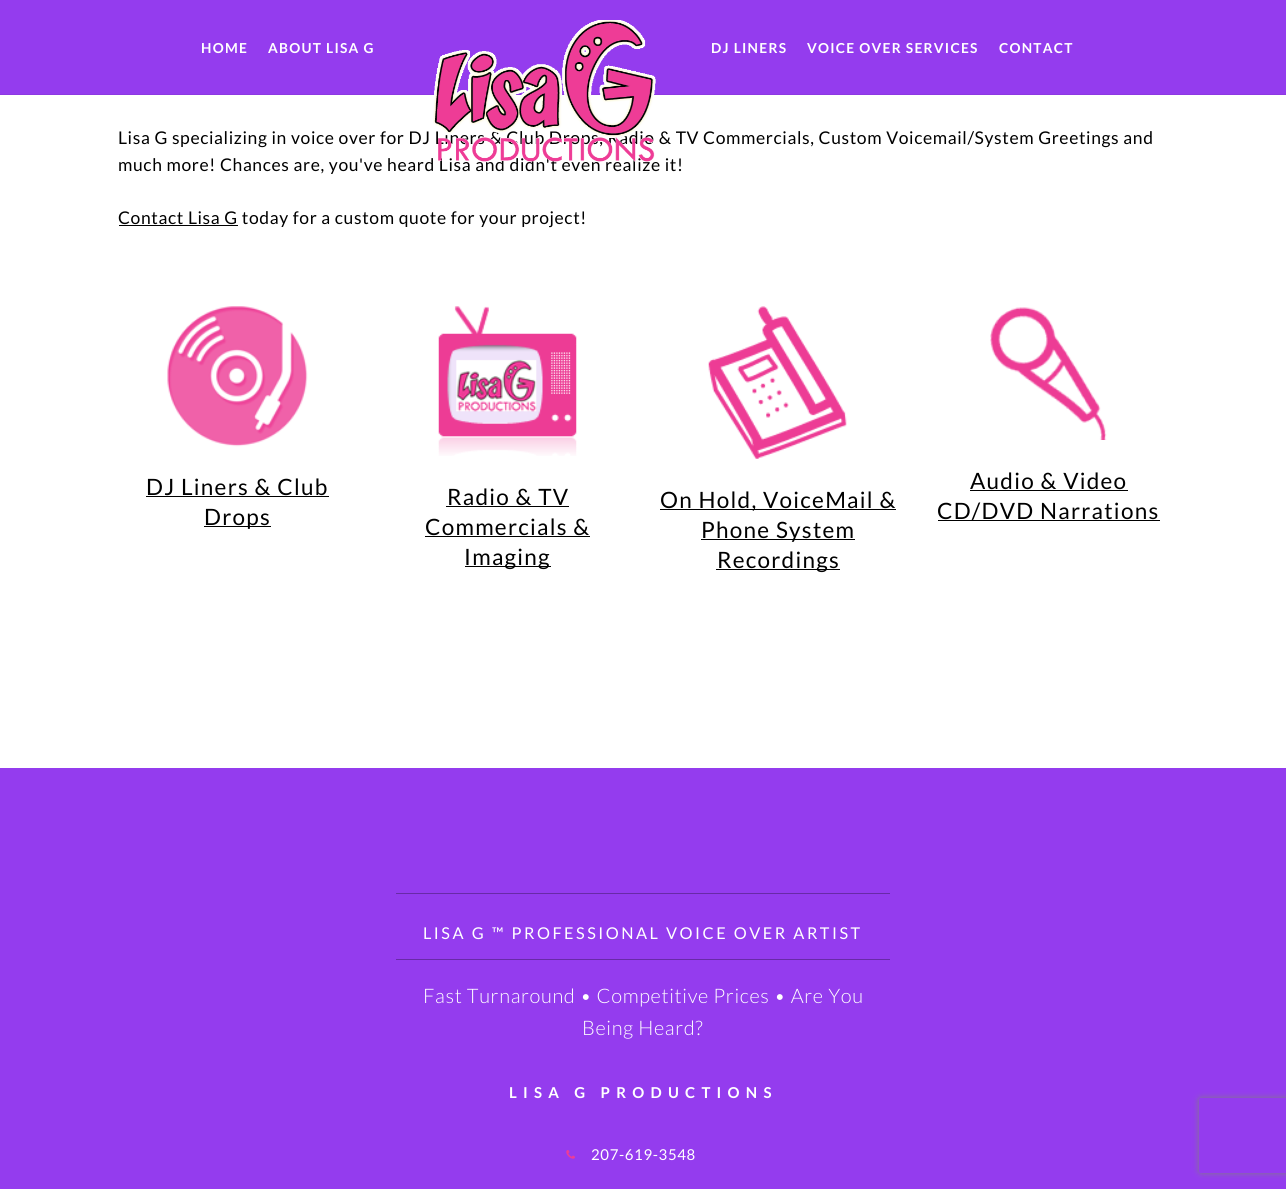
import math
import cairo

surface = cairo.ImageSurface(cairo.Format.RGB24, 1286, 1189)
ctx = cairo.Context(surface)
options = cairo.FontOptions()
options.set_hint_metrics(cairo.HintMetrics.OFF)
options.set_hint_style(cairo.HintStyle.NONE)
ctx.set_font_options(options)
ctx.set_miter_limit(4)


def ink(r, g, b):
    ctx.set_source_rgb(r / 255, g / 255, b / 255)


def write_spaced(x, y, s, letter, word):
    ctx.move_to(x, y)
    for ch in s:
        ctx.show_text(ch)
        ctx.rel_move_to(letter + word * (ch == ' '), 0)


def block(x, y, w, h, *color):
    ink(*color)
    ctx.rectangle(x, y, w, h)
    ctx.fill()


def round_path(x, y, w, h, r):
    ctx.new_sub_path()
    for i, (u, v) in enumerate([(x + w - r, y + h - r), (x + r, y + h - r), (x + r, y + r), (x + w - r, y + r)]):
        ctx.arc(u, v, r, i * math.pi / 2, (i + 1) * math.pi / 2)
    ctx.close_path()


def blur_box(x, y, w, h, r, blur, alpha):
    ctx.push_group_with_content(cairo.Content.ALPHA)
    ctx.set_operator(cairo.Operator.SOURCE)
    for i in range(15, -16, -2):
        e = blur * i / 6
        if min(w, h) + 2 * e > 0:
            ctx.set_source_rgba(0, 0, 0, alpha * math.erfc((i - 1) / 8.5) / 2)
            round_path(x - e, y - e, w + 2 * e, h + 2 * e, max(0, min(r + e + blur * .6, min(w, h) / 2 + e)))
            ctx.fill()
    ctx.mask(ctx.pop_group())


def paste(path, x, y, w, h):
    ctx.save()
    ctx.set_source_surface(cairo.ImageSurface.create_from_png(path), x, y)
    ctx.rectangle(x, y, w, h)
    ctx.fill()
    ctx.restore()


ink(255, 255, 255)
ctx.paint()
block(0, 0, 1286, 94, 148, 60, 238)
block(0, 94, 1286, 1, 141, 57, 226)
ctx.select_font_face("Lato", cairo.FontSlant.NORMAL, cairo.FontWeight.BOLD)
ctx.set_font_size(13.75)
ink(255, 255, 255)
write_spaced(201, 53, "HOME", 1.25, 0)
write_spaced(268, 53, "ABOUT LISA G", 1.25, 0)
ctx.select_font_face("Lato")
ctx.set_font_size(17.5)
ink(0, 0, 0)
write_spaced(118, 144, "Lisa G specializing in voice over for DJ Liners & Club Drops, Radio & TV Commercials, Custom Voicemail/System Greetings and", 0.62, 0)
write_spaced(118, 171, "much more! Chances are, you've heard Lisa and didn't even realize it!", 0.62, 0)
paste("pic1.png", 433, 20, 223, 142)
ctx.select_font_face("Lato", cairo.FontSlant.NORMAL, cairo.FontWeight.BOLD)
ctx.set_font_size(13.75)
ink(255, 255, 255)
write_spaced(711, 53, "DJ LINERS", 1.25, 0)
write_spaced(807, 53, "VOICE OVER SERVICES", 1.25, 0)
write_spaced(999, 53, "CONTACT", 1.25, 0)
block(119, 225, 119, 1, 0, 0, 0)
ctx.select_font_face("Lato")
ctx.set_font_size(17.5)
write_spaced(118, 224, "Contact Lisa G today for a custom quote for your project!", 0.62, 0)
paste("pic2.png", 167, 306, 141, 141)
ctx.set_font_size(22.5)
write_spaced(146, 495, "DJ Liners & Club", 1.25, 0)
block(146, 496, 183, 1, 0, 0, 0)
block(204, 526, 67, 1, 0, 0, 0)
write_spaced(204, 525, "Drops", 1.25, 0)
paste("pic3.png", 438, 306, 139, 150)
write_spaced(447, 505, "Radio & TV", 1.25, 0)
block(446, 506, 123, 1, 0, 0, 0)
write_spaced(425, 535, "Commercials &", 1.25, 0)
block(425, 536, 165, 1, 0, 0, 0)
block(465, 566, 86, 1, 0, 0, 0)
write_spaced(464, 565, "Imaging", 1.25, 0)
paste("pic4.png", 708, 306, 139, 153)
block(660, 509, 236, 1, 0, 0, 0)
write_spaced(660, 508, "On Hold, VoiceMail &", 1.25, 0)
block(701, 539, 154, 1, 0, 0, 0)
write_spaced(701, 538, "Phone System", 1.25, 0)
block(716, 569, 124, 1, 0, 0, 0)
write_spaced(717, 568, "Recordings", 1.25, 0)
paste("pic5.png", 990, 307, 117, 133)
write_spaced(970, 489, "Audio & Video", 1.25, 0)
block(970, 490, 158, 1, 0, 0, 0)
write_spaced(937, 519, "CD/DVD Narrations", 1.25, 0)
block(938, 520, 222, 1, 0, 0, 0)
block(0, 768, 1286, 421, 148, 60, 238)
block(396, 893, 494, 1, 104, 42, 167)
block(396, 959, 494, 1, 104, 42, 167)
ctx.set_font_size(16.25)
ink(255, 255, 255)
write_spaced(423, 939, "LISA G ™ PROFESSIONAL VOICE OVER ARTIST", 2.5, 0)
ctx.select_font_face("Lato Light")
ctx.set_font_size(20)
write_spaced(423, 1003, "Fast Turnaround • Competitive Prices • Are You", 0.62, 0)
write_spaced(582, 1035, "Being Heard?", 0.62, 0)
ctx.select_font_face("Lato", cairo.FontSlant.NORMAL, cairo.FontWeight.BOLD)
ctx.set_font_size(15)
write_spaced(509, 1098, "LISA G PRODUCTIONS", 6.25, 0)
paste("pic6.png", 566, 1150, 9, 9)
ctx.select_font_face("Lato")
write_spaced(591, 1160, "207-619-3548", 0.62, 0)
ctx.save()
ctx.set_fill_rule(cairo.FillRule.EVEN_ODD)
ctx.new_path()
ctx.move_to(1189, 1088)
ctx.line_to(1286, 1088)
ctx.line_to(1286, 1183)
ctx.line_to(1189, 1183)
ctx.close_path()
ctx.move_to(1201.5, 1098)
ctx.line_to(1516.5, 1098)
ctx.curve_to(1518, 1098, 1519, 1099, 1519, 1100.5)
ctx.line_to(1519, 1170.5)
ctx.curve_to(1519, 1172, 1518, 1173, 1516.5, 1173)
ctx.line_to(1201.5, 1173)
ctx.curve_to(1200, 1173, 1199, 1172, 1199, 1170.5)
ctx.line_to(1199, 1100.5)
ctx.curve_to(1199, 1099, 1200, 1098, 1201.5, 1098)
ctx.close_path()
ctx.clip()
ink(128, 128, 128)
blur_box(1199, 1098, 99, 75, 2.5, 3, 1)
ctx.restore()
surface.write_to_png("screenshot.png")
